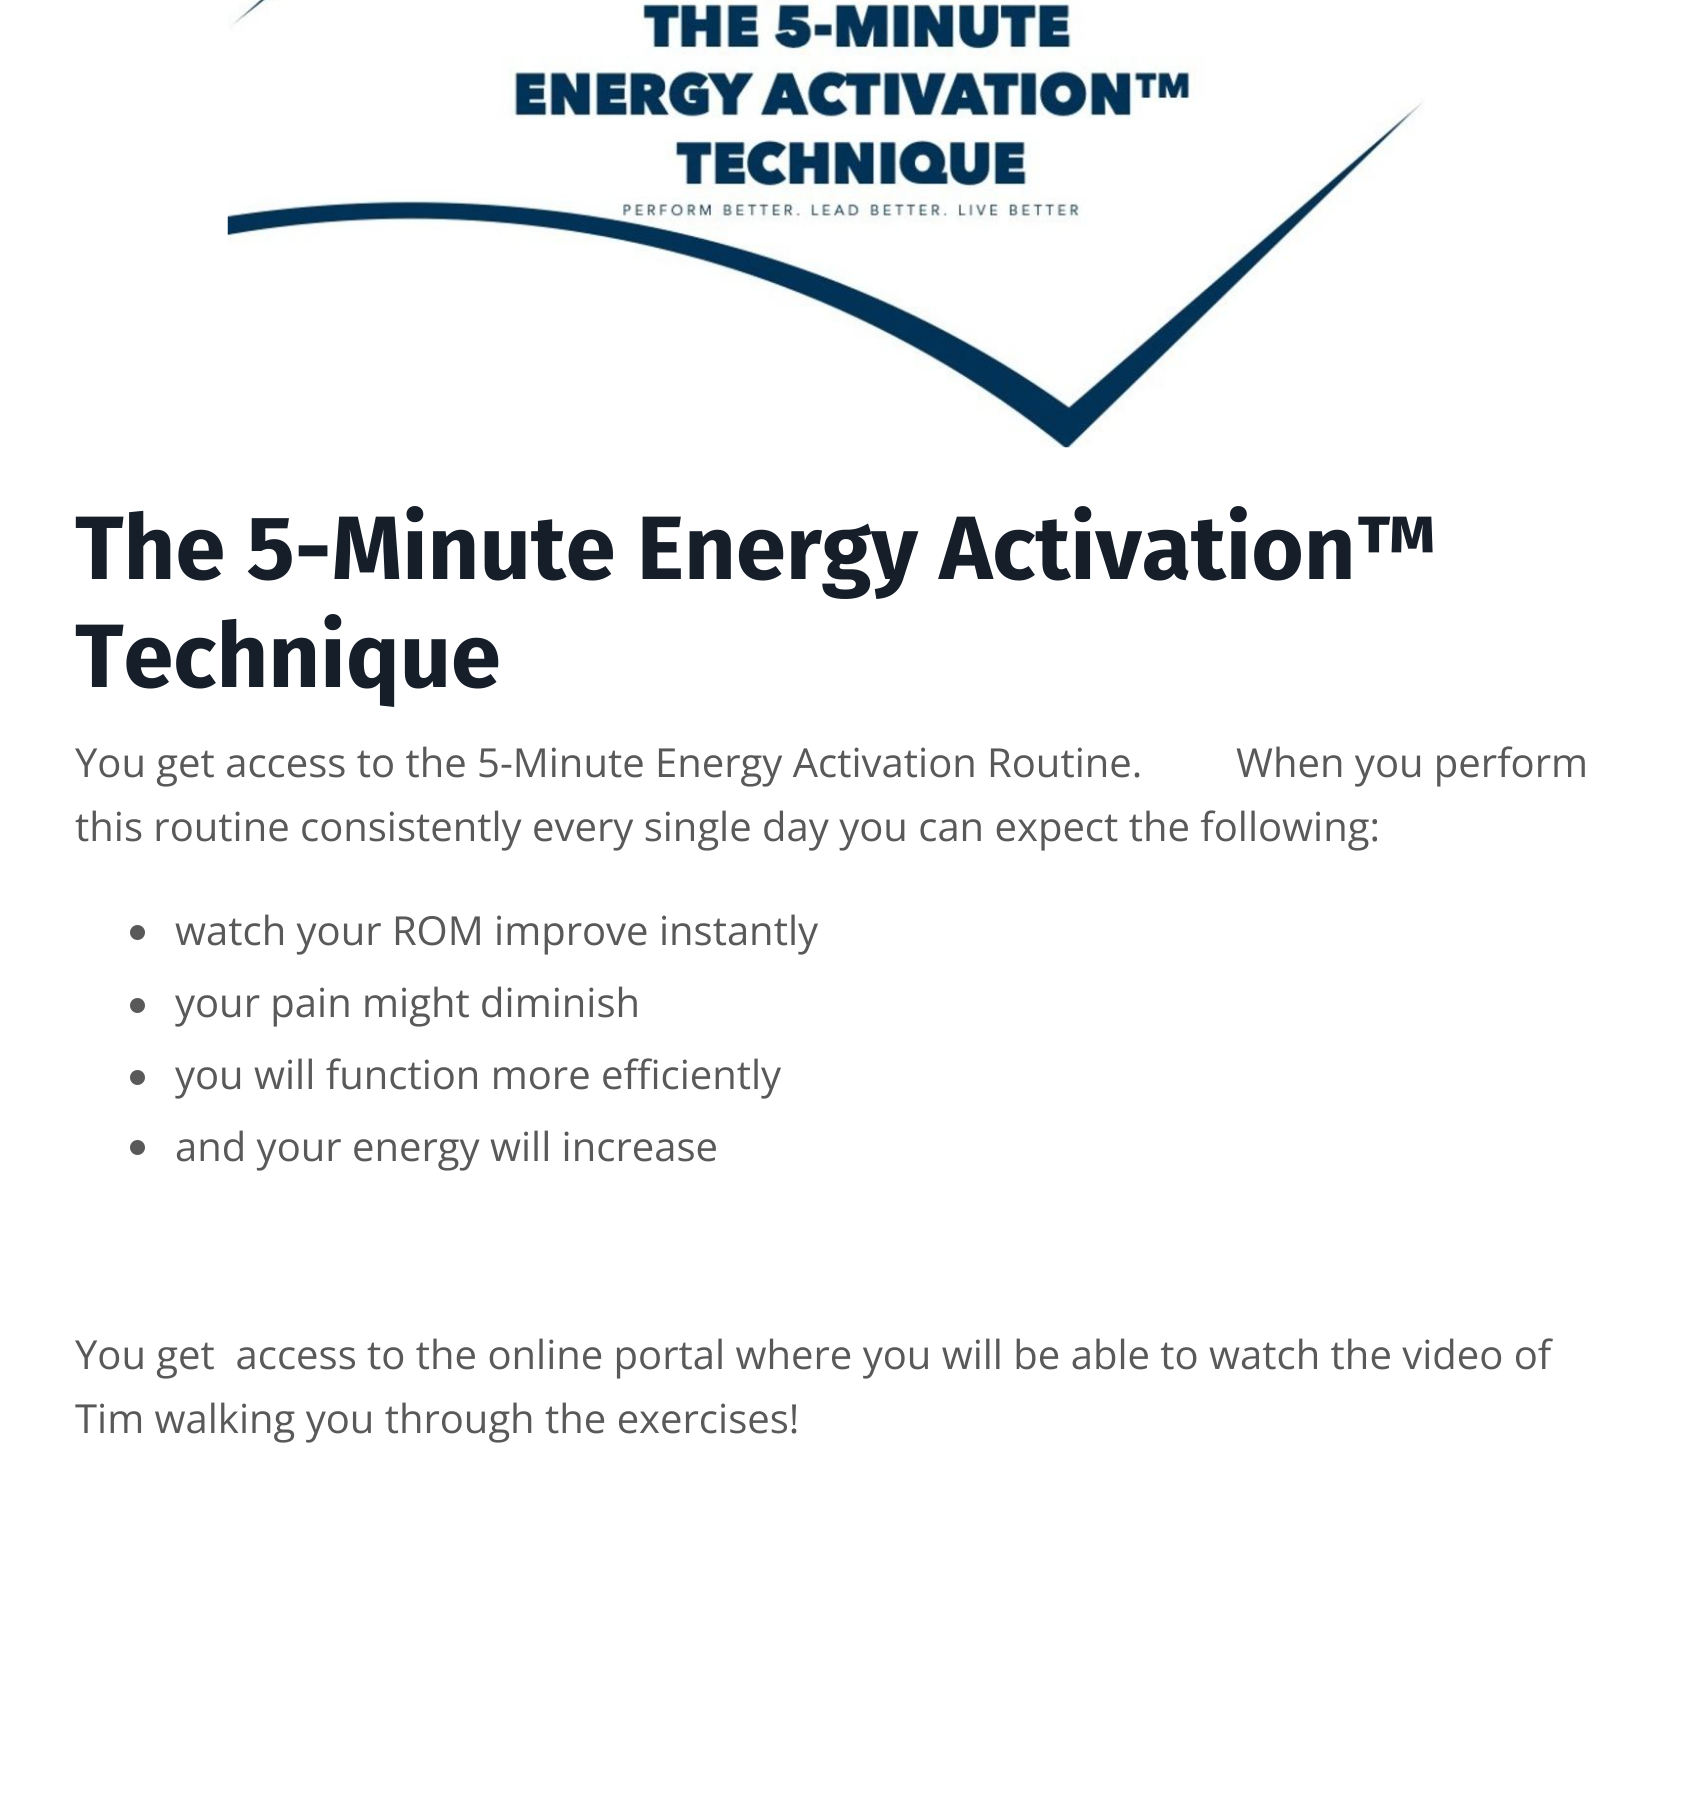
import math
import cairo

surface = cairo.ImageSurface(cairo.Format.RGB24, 1705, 1793)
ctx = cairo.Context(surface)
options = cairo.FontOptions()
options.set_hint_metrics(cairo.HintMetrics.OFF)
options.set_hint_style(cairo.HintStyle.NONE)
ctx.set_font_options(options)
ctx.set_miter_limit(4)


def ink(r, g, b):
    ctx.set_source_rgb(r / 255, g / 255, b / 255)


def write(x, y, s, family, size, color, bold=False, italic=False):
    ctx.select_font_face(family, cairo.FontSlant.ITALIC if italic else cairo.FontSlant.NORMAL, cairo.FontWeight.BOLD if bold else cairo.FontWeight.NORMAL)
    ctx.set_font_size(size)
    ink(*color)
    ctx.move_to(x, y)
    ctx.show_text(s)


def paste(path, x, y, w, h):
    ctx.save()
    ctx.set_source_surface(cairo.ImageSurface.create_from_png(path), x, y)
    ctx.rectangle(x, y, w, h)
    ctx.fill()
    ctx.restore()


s1 = dict(family="Fira Sans", size=90, color=(22, 30, 42), bold=True)
s2 = dict(family="Open Sans", size=40, color=(89, 89, 89))

ink(255, 255, 255)
ctx.paint()
paste("pic1.png", 227, 0, 1198, 448)
write(75, 579, "The 5-Minute Energy Activation™", **s1)
write(75, 687, "Technique", **s1)
write(75, 777, "You get access to the 5-Minute Energy Activation Routine.", **s2)
write(1236, 777, "When you perform", **s2)
write(75, 841, "this routine consistently every single day you can expect the following:", **s2)
ctx.new_path()
ctx.arc(137.5, 932.5, 7.5, 0, 2 * math.pi)
ctx.fill()
write(175, 945, "watch your ROM improve instantly", **s2)
ctx.new_path()
ctx.arc(137.5, 1005.5, 7.5, 0, 2 * math.pi)
ctx.fill()
write(175, 1017, "your pain might diminish", **s2)
ctx.new_path()
ctx.arc(137.5, 1077.5, 7.5, 0, 2 * math.pi)
ctx.fill()
write(175, 1089, "you will function more efficiently", **s2)
ctx.new_path()
ctx.arc(137.5, 1147.5, 7.5, 0, 2 * math.pi)
ctx.fill()
write(175, 1161, "and your energy will increase", **s2)
write(75, 1369, "You get  access to the online portal where you will be able to watch the video of", **s2)
write(75, 1433, "Tim walking you through the exercises!", **s2)
surface.write_to_png("screenshot.png")
